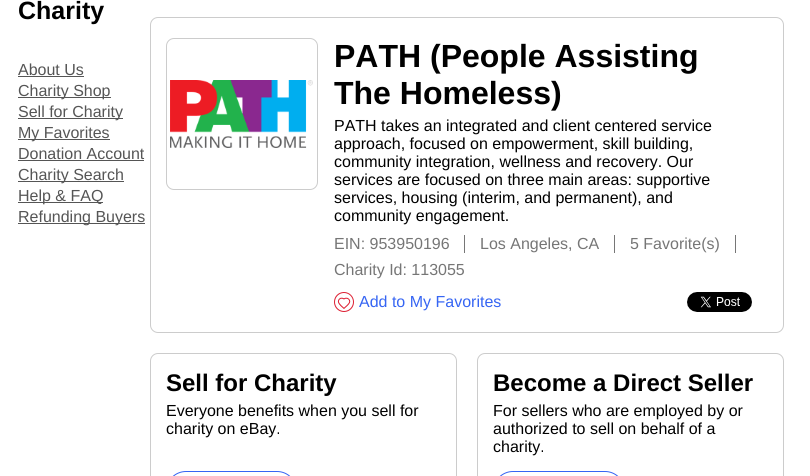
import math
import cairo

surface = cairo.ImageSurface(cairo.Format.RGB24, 810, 476)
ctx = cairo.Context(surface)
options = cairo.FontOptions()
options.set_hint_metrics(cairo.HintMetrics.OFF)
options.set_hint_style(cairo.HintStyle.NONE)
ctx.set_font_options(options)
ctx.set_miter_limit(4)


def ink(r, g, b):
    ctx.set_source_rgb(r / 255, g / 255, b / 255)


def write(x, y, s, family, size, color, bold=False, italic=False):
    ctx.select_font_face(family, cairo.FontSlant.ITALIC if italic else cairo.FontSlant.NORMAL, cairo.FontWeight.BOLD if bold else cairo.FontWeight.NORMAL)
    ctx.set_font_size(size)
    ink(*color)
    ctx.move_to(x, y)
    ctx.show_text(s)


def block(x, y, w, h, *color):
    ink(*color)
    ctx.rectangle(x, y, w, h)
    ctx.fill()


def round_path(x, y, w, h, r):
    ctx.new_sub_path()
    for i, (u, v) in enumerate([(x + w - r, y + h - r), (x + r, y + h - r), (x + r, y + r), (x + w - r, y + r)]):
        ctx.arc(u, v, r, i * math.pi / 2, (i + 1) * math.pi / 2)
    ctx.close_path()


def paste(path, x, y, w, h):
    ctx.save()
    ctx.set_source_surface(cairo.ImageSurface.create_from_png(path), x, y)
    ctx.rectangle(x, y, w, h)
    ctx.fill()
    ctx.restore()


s1 = dict(family="Liberation Sans", size=25, color=(0, 0, 0), bold=True)
s2 = dict(family="Liberation Sans", size=16, color=(85, 85, 85))
s3 = dict(family="Liberation Sans", size=32, color=(0, 0, 0), bold=True)
s4 = dict(family="Liberation Sans", size=16, color=(0, 0, 0))
s5 = dict(family="Liberation Sans", size=16, color=(118, 118, 118))
s6 = dict(family="Liberation Sans", size=16, color=(54, 101, 243))
s7 = dict(family="Liberation Sans", size=24, color=(0, 0, 0), bold=True)

ink(255, 255, 255)
ctx.paint()
write(18, 19, "Charity", **s1)
write(18, 75, "About Us", **s2)
block(18, 76, 66, 1, 85, 85, 85)
block(18, 97, 93, 1, 85, 85, 85)
write(18, 96, "Charity Shop", **s2)
block(18, 118, 105, 1, 85, 85, 85)
write(18, 117, "Sell for Charity", **s2)
block(18, 139, 92, 1, 85, 85, 85)
write(18, 138, "My Favorites", **s2)
write(18, 159, "Donation Account", **s2)
block(18, 160, 126, 1, 85, 85, 85)
block(18, 181, 106, 1, 85, 85, 85)
write(18, 180, "Charity Search", **s2)
block(18, 202, 85, 1, 85, 85, 85)
write(18, 201, "Help & FAQ", **s2)
block(18, 223, 127, 1, 85, 85, 85)
write(18, 222, "Refunding Buyers", **s2)
round_path(150.5, 17.5, 633, 315, 7.5)
ink(204, 204, 204)
ctx.set_line_width(1)
ctx.stroke()
round_path(166.5, 38.5, 151, 151, 7.5)
ctx.stroke()
paste("pic1.png", 170, 80, 143, 68)
write(334, 67, "PATH (People Assisting", **s3)
write(334, 104, "The Homeless)", **s3)
write(334, 131, "PATH takes an integrated and client centered service", **s4)
write(334, 149, "approach, focused on empowerment, skill building,", **s4)
write(334, 167, "community integration, wellness and recovery. Our", **s4)
write(334, 185, "services are focused on three main areas: supportive", **s4)
write(334, 203, "services, housing (interim, and permanent), and", **s4)
write(334, 221, "community engagement.", **s4)
block(464, 235, 1, 18, 118, 118, 118)
write(334, 249, "EIN: 953950196", **s5)
block(614, 235, 1, 18, 118, 118, 118)
write(480, 249, "Los Angeles, CA", **s5)
block(735, 235, 1, 18, 118, 118, 118)
write(630, 249, "5 Favorite(s)", **s5)
write(334, 275, "Charity Id: 113055", **s5)
paste("pic2.png", 334, 292, 20, 20)
write(359, 307, "Add to My Favorites", **s6)
paste("pic3.png", 687, 292, 65, 20)
round_path(150.5, 353.5, 306, 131, 7.5)
ink(204, 204, 204)
ctx.stroke()
write(166, 391, "Sell for Charity", **s7)
write(166, 416, "Everyone benefits when you sell for", **s4)
write(166, 434, "charity on eBay.", **s4)
round_path(166.5, 471.5, 130, 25, 19.5)
ink(54, 101, 243)
ctx.stroke()
round_path(477.5, 353.5, 306, 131, 7.5)
ink(204, 204, 204)
ctx.stroke()
write(493, 391, "Become a Direct Seller", **s7)
write(493, 416, "For sellers who are employed by or", **s4)
write(493, 434, "authorized to sell on behalf of a", **s4)
write(493, 452, "charity.", **s4)
round_path(493.5, 471.5, 131, 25, 19.5)
ink(54, 101, 243)
ctx.stroke()
surface.write_to_png("screenshot.png")
